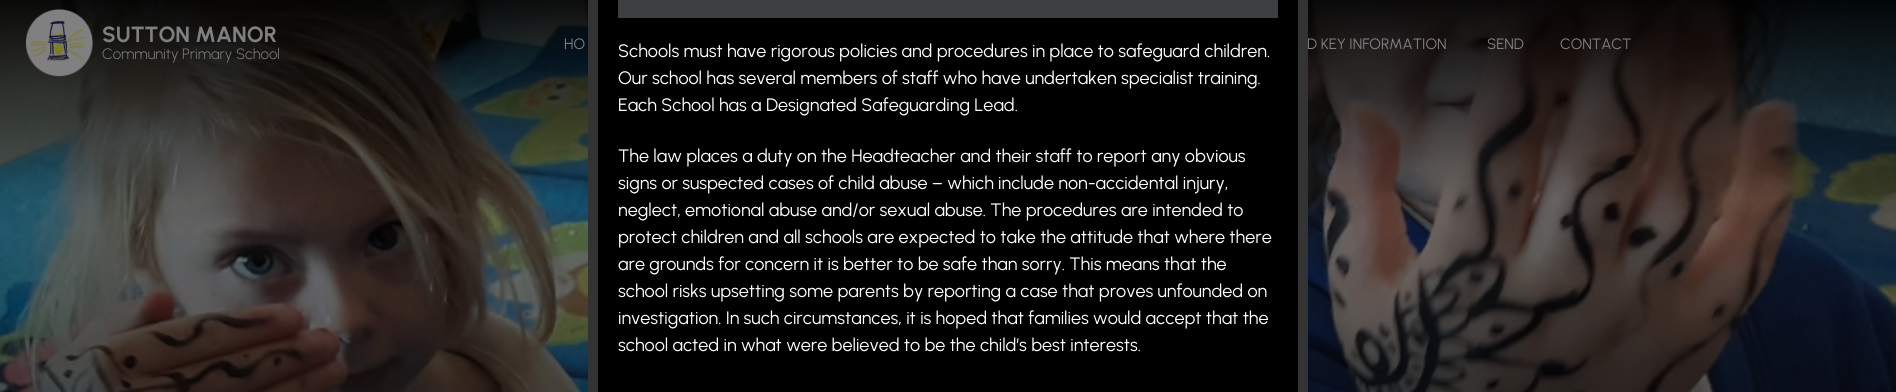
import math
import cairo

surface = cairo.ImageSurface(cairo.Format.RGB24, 1896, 392)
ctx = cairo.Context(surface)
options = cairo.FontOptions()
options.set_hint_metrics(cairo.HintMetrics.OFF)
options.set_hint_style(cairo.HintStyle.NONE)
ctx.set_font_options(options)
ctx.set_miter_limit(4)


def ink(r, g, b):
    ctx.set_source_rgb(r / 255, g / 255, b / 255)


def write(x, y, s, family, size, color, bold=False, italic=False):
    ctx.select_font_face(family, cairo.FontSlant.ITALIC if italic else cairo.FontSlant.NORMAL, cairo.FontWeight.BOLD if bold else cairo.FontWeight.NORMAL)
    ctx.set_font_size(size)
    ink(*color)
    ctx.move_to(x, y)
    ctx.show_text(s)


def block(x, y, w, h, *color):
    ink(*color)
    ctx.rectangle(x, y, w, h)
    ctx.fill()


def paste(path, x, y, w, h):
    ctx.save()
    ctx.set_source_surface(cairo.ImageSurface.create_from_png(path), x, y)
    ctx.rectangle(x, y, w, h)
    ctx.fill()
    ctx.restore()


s1 = dict(family="Urbanist", size=22, color=(128, 128, 128), bold=True)
s2 = dict(family="Urbanist Light", size=15, color=(128, 128, 128))
s3 = dict(family="Urbanist", size=15, color=(128, 128, 128))
s4 = dict(family="Urbanist", size=18, color=(255, 255, 255))

ink(255, 255, 255)
ctx.paint()
paste("pic1.png", 0, 0, 1896, 392)
paste("pic2.png", 25, 9, 69, 68)
write(102, 42, "SUTTON MANOR", **s1)
write(102, 59, "Community Primary School", **s2)
write(564, 49, "HO", **s3)
write(1307, 49, "D KEY INFORMATION", **s3)
write(1487, 49, "SEND", **s3)
write(1560, 49, "CONTACT", **s3)
ink(0, 0, 0)
ctx.rectangle(593, -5, 710, 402)
ctx.fill_preserve()
ink(51, 51, 51)
ctx.set_line_width(10)
ctx.stroke()
block(618, 0, 660, 18, 61, 63, 64)
write(618, 57, "Schools must have rigorous policies and procedures in place to safeguard children.", **s4)
write(618, 84, "Our school has several members of staff who have undertaken specialist training.", **s4)
write(618, 111, "Each School has a Designated Safeguarding Lead.", **s4)
write(618, 162, "The law places a duty on the Headteacher and their staff to report any obvious", **s4)
write(618, 189, "signs or suspected cases of child abuse – which include non-accidental injury,", **s4)
write(618, 216, "neglect, emotional abuse and/or sexual abuse. The procedures are intended to", **s4)
write(618, 243, "protect children and all schools are expected to take the attitude that where there", **s4)
write(618, 270, "are grounds for concern it is better to be safe than sorry. This means that the", **s4)
write(618, 297, "school risks upsetting some parents by reporting a case that proves unfounded on", **s4)
write(618, 324, "investigation. In such circumstances, it is hoped that families would accept that the", **s4)
write(618, 351, "school acted in what were believed to be the child’s best interests.", **s4)
surface.write_to_png("screenshot.png")
